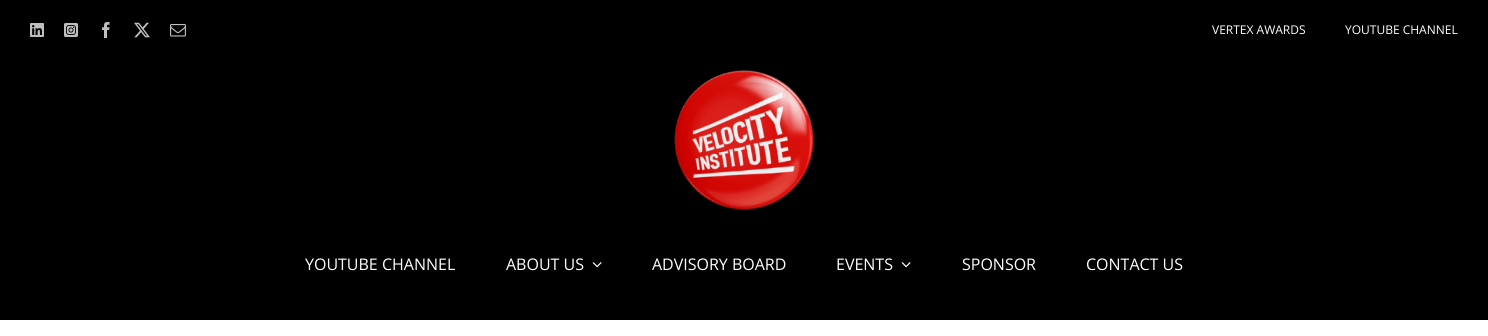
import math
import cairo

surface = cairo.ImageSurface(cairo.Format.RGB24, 1488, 336)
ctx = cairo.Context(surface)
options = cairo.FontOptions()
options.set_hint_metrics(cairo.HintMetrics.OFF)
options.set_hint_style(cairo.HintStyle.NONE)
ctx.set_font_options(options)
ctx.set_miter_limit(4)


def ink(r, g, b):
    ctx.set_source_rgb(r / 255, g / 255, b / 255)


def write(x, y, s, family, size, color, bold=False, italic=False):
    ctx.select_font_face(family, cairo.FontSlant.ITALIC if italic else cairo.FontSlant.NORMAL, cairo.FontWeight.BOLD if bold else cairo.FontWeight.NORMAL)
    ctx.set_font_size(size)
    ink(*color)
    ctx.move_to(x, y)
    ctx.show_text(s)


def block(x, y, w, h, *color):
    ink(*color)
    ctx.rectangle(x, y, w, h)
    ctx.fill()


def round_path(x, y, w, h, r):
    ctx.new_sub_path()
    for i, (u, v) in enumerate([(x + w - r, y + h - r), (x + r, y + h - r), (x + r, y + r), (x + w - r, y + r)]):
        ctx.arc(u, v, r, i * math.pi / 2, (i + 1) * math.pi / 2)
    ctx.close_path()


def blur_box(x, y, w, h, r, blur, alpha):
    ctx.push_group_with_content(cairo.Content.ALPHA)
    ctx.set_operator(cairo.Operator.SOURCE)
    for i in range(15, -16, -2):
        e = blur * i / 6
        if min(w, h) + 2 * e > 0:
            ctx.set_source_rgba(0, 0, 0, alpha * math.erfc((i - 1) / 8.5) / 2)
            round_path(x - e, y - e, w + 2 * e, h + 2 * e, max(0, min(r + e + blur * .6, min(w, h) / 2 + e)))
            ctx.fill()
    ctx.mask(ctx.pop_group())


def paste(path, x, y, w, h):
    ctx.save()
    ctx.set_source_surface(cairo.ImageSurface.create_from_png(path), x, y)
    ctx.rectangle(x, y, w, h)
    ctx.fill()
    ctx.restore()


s1 = dict(family="Open Sans", size=12, color=(255, 255, 255))
s2 = dict(family="Open Sans", size=16, color=(255, 255, 255))

ink(255, 255, 255)
ctx.paint()
block(0, 60, 1488, 260, 0, 0, 0)
paste("pic6.png", 674, 70, 140, 140)
ink(0, 0, 0)
blur_box(-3, -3, 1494, 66, 0, 25, 0.1)
block(0, 0, 1488, 60, 0, 0, 0)
paste("pic1.png", 30, 23, 14, 14)
paste("pic2.png", 64, 23, 14, 14)
paste("pic3.png", 102, 22, 8, 16)
paste("pic4.png", 134, 22, 16, 16)
paste("pic5.png", 170, 24, 16, 13)
write(1212, 34, "VERTEX AWARDS", **s1)
write(1345, 34, "YOUTUBE CHANNEL", **s1)
write(305, 270, "YOUTUBE CHANNEL", **s2)
write(506, 270, "ABOUT US", **s2)
paste("pic7.png", 592, 262, 10, 6)
write(652, 270, "ADVISORY BOARD", **s2)
write(836, 270, "EVENTS", **s2)
paste("pic7.png", 901, 262, 10, 6)
write(962, 270, "SPONSOR", **s2)
write(1086, 270, "CONTACT US", **s2)
surface.write_to_png("screenshot.png")
